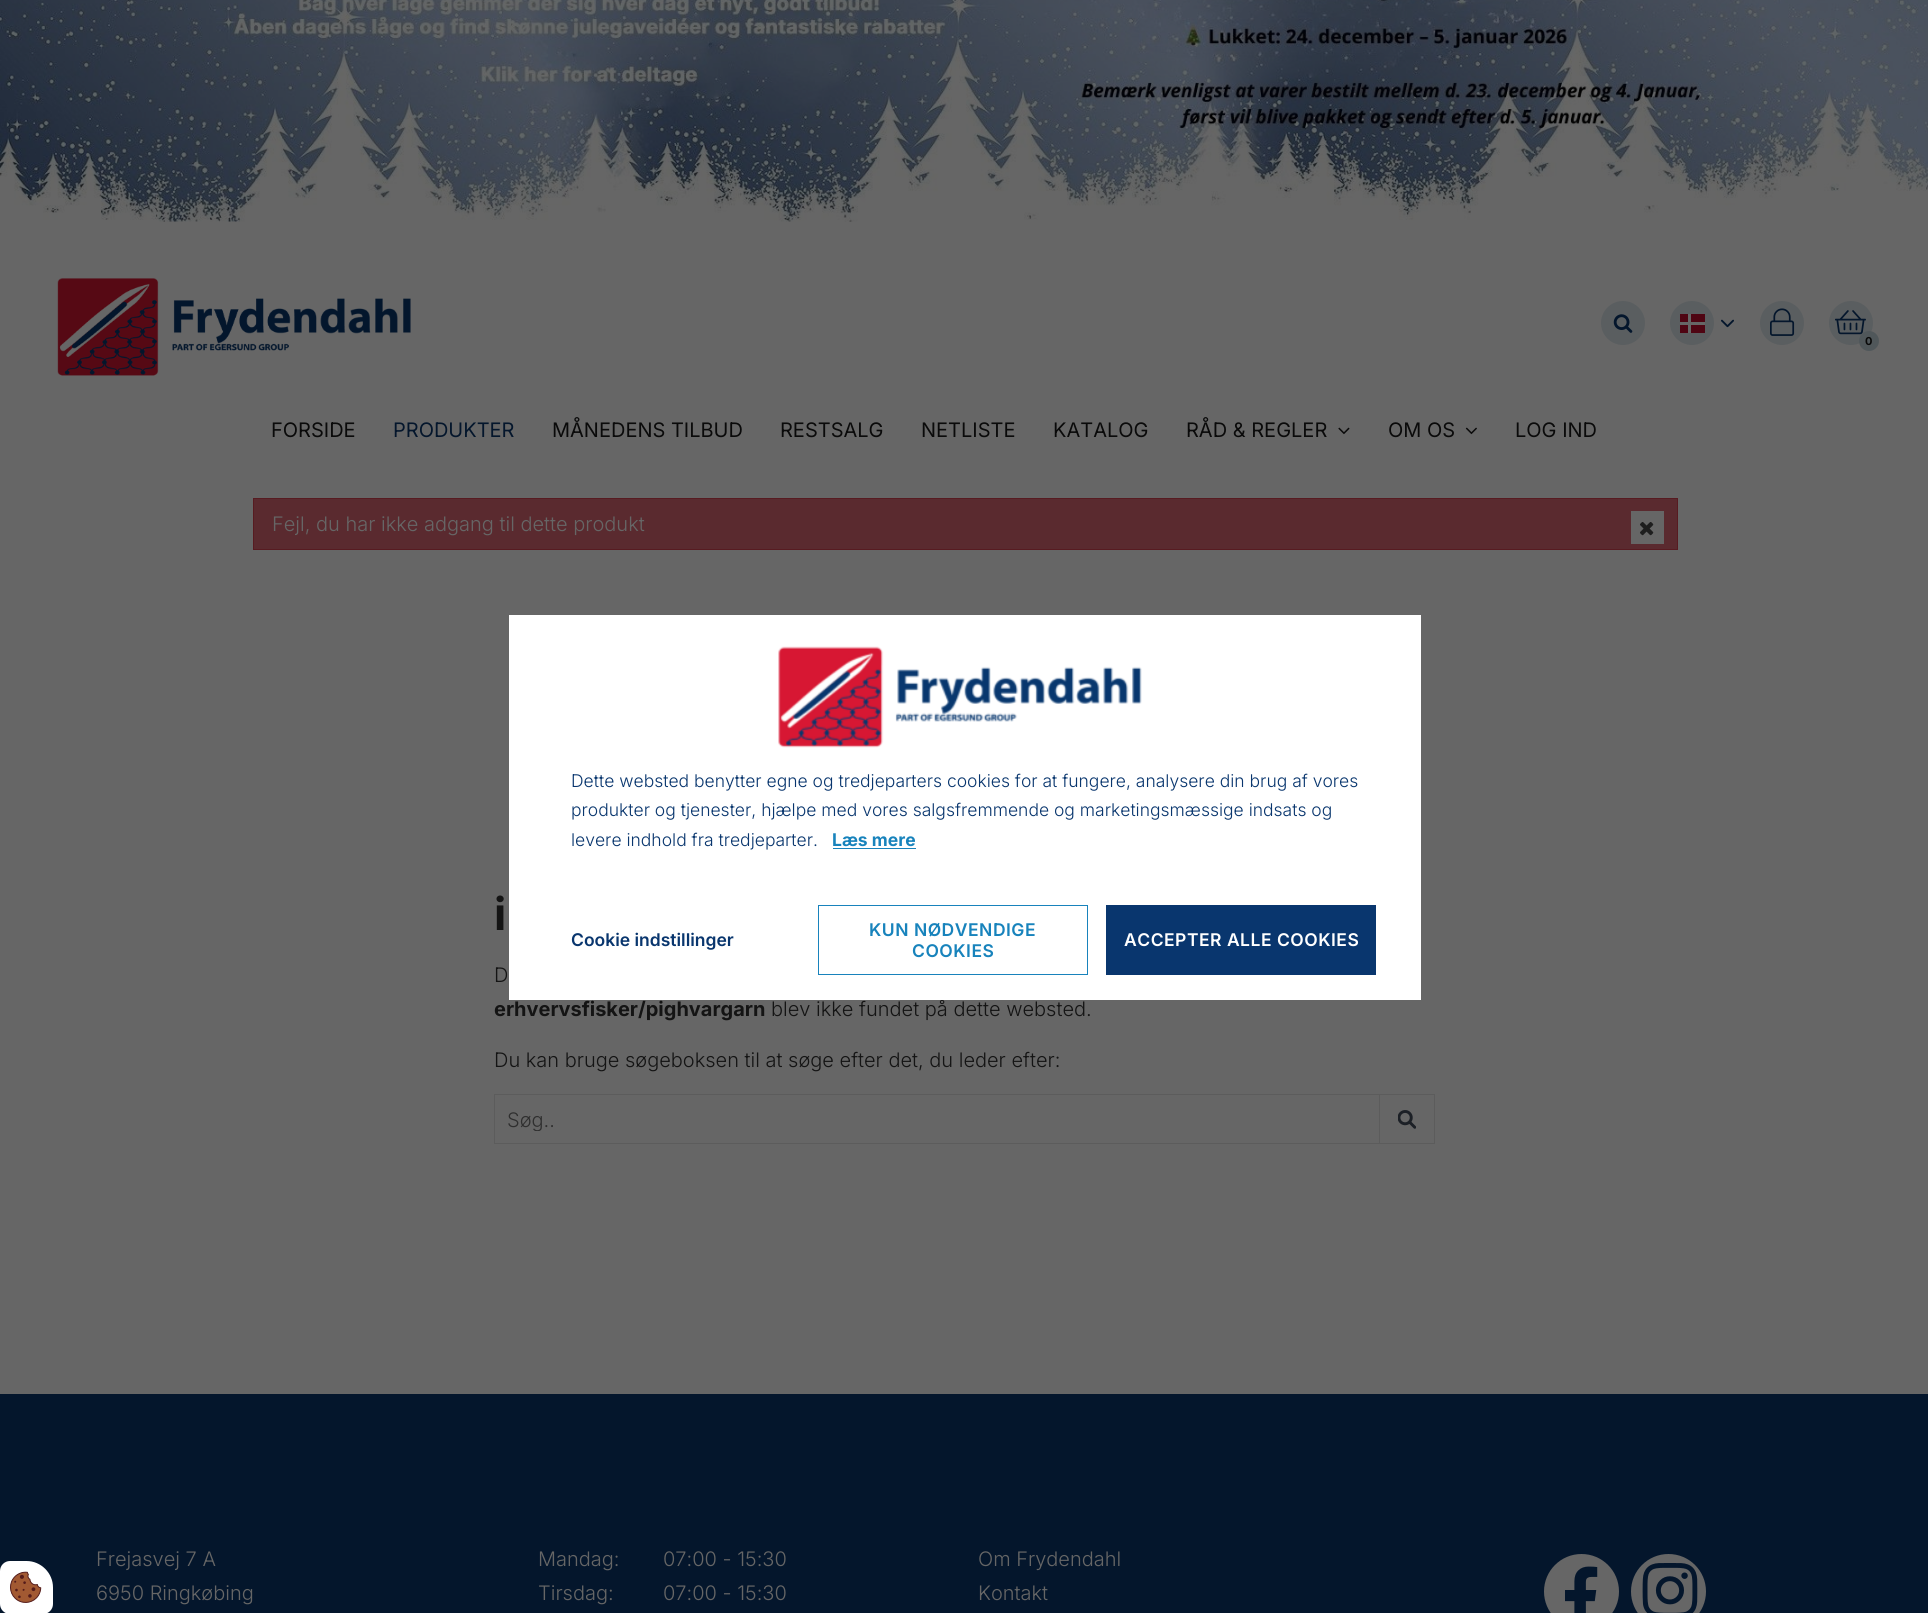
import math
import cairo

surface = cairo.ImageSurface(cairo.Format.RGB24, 1928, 1613)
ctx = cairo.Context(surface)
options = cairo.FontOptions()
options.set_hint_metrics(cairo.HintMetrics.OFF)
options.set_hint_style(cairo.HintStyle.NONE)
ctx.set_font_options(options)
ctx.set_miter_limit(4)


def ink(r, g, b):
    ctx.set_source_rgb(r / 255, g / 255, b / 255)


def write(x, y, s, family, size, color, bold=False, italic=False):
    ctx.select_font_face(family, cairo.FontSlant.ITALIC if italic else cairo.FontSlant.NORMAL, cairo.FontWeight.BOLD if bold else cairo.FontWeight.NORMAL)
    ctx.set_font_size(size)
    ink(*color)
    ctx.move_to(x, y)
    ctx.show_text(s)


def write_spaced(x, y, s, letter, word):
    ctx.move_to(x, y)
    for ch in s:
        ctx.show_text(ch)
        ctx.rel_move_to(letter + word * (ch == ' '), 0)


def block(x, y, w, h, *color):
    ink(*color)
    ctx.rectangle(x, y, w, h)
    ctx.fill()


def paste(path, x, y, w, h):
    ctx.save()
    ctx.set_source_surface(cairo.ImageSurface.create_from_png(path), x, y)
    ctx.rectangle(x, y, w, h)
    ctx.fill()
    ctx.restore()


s1 = dict(family="Inter", size=11, color=(10, 10, 10), bold=True)
s2 = dict(family="Inter", size=20, color=(10, 10, 10))
s3 = dict(family="Inter", size=20, color=(4, 22, 44))
s4 = dict(family="Inter Light", size=20, color=(102, 102, 102))
s5 = dict(family="Inter", size=45, color=(20, 20, 20), bold=True)
s6 = dict(family="Inter Light", size=20, color=(20, 20, 20))
s7 = dict(family="Inter", size=20, color=(20, 20, 20), bold=True)
s8 = dict(family="Inter Light", size=20, color=(47, 47, 47))
s9 = dict(family="Inter Light", size=17.5, color=(9, 54, 110))
s10 = dict(family="Inter", size=17.5, color=(24, 131, 188), bold=True)
s11 = dict(family="Inter SemiBold", size=17.5, color=(9, 54, 110))

ink(102, 102, 102)
ctx.paint()
paste("pic1.png", 0, 0, 1928, 222)
paste("pic2.png", 57, 278, 354, 98)
ink(90, 94, 96)
ctx.arc(1623, 323, 22, 0, 2 * math.pi)
ctx.fill()
paste("pic3.png", 1613, 314, 20, 19)
ctx.arc(1692, 323, 22, 0, 2 * math.pi)
ctx.fill()
block(1680, 314, 25, 19, 79, 5, 19)
block(1688, 314, 3, 19, 102, 102, 102)
block(1680, 322, 25, 3, 102, 102, 102)
paste("pic4.png", 1721, 319, 13, 9)
ink(90, 94, 96)
ctx.arc(1782, 323, 22, 0, 2 * math.pi)
ctx.fill()
paste("pic5.png", 1770, 308, 25, 28)
ctx.arc(1851, 323, 22, 0, 2 * math.pi)
ctx.fill()
paste("pic6.png", 1835, 310, 31, 25)
ink(80, 87, 90)
ctx.arc(1869, 341, 10, 0, 2 * math.pi)
ctx.fill()
write(1865, 345, "0", **s1)
write(271, 437, "FORSIDE", **s2)
write(393, 437, "PRODUKTER", **s3)
write(552, 437, "MÅNEDENS TILBUD", **s2)
write(780, 437, "RESTSALG", **s2)
write(921, 437, "NETLISTE", **s2)
write(1053, 437, "KATALOG", **s2)
write(1186, 437, "RÅD & REGLER", **s2)
paste("pic7.png", 1338, 427, 12, 8)
write(1388, 437, "OM OS", **s2)
paste("pic8.png", 1465, 427, 12, 8)
write(1515, 437, "LOG IND", **s2)
ink(90, 42, 47)
ctx.rectangle(253.5, 498.5, 1424, 51)
ctx.fill_preserve()
ink(87, 27, 33)
ctx.set_line_width(1)
ctx.stroke()
write(272, 531, "Fejl, du har ikke adgang til dette produkt", **s4)
block(1631, 511, 33, 33, 102, 102, 102)
paste("pic9.png", 1640, 522, 14, 14)
write(494, 930, "i", **s5)
write(494, 982, "D", **s6)
write(494, 1016, "erhvervsfisker/pighvargarn", **s7)
write(771, 1016, "blev ikke fundet på dette websted.", **s6)
write(494, 1067, "Du kan bruge søgeboksen til at søge efter det, du leder efter:", **s6)
ctx.rectangle(494.5, 1094.5, 885, 49)
ink(92, 92, 92)
ctx.stroke()
ctx.save()
ctx.rectangle(508, 1106, 858, 25)
ctx.clip()
write(507, 1127, "Søg..", **s8)
ctx.restore()
block(1380, 1094, 55, 1, 92, 92, 92)
block(1434, 1094, 1, 50, 92, 92, 92)
block(1380, 1143, 55, 1, 92, 92, 92)
paste("pic10.png", 1398, 1110, 18, 19)
block(0, 1394, 1928, 219, 4, 22, 44)
write(96, 1566, "Frejasvej 7 A", **s4)
write(96, 1600, "6950 Ringkøbing", **s4)
write(538, 1566, "Mandag:", **s4)
write(663, 1566, "07:00 - 15:30", **s4)
write(538, 1600, "Tirsdag:", **s4)
write(663, 1600, "07:00 - 15:30", **s4)
write(978, 1566, "Om Frydendahl", **s4)
write(978, 1600, "Kontakt", **s4)
ctx.new_path()
ctx.arc(1581.5, 1591.5, 37.5, 0, 2 * math.pi)
ctx.fill()
paste("pic11.png", 1565, 1566, 33, 47)
ctx.arc(1668.5, 1591.5, 37.5, 0, 2 * math.pi)
ctx.fill()
paste("pic12.png", 1642, 1563, 56, 50)
block(509, 615, 912, 385, 255, 255, 255)
paste("pic13.png", 778, 646, 364, 102)
write(571, 787, "Dette websted benytter egne og tredjeparters cookies for at fungere, analysere din brug af vores", **s9)
write(571, 816, "produkter og tjenester, hjælpe med vores salgsfremmende og marketingsmæssige indsats og", **s9)
write(571, 846, "levere indhold fra tredjeparter.", **s9)
write(832, 846, "Læs mere", **s10)
block(833, 848, 83, 1, 24, 131, 188)
write(571, 946, "Cookie indstillinger", **s11)
ctx.rectangle(818.5, 905.5, 269, 69)
ink(24, 131, 188)
ctx.stroke()
write_spaced(869, 936, "KUN NØDVENDIGE", 0.5, 0)
write_spaced(912, 957, "COOKIES", 0.5, 0)
block(1106, 905, 270, 70, 9, 54, 110)
ink(255, 255, 255)
write_spaced(1124, 946, "ACCEPTER ALLE COOKIES", 0.5, 0)
ctx.new_path()
ctx.move_to(10, 1561)
ctx.line_to(26.5, 1561)
ctx.curve_to(41, 1561, 53, 1573, 53, 1587.5)
ctx.line_to(53, 1604)
ctx.curve_to(53, 1609.5, 48.5, 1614, 43, 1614)
ctx.line_to(10, 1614)
ctx.curve_to(4.5, 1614, 0, 1609.5, 0, 1604)
ctx.line_to(0, 1571)
ctx.curve_to(0, 1565.5, 4.5, 1561, 10, 1561)
ctx.close_path()
ctx.fill()
paste("pic14.png", 10, 1571, 32, 32)
surface.write_to_png("screenshot.png")
